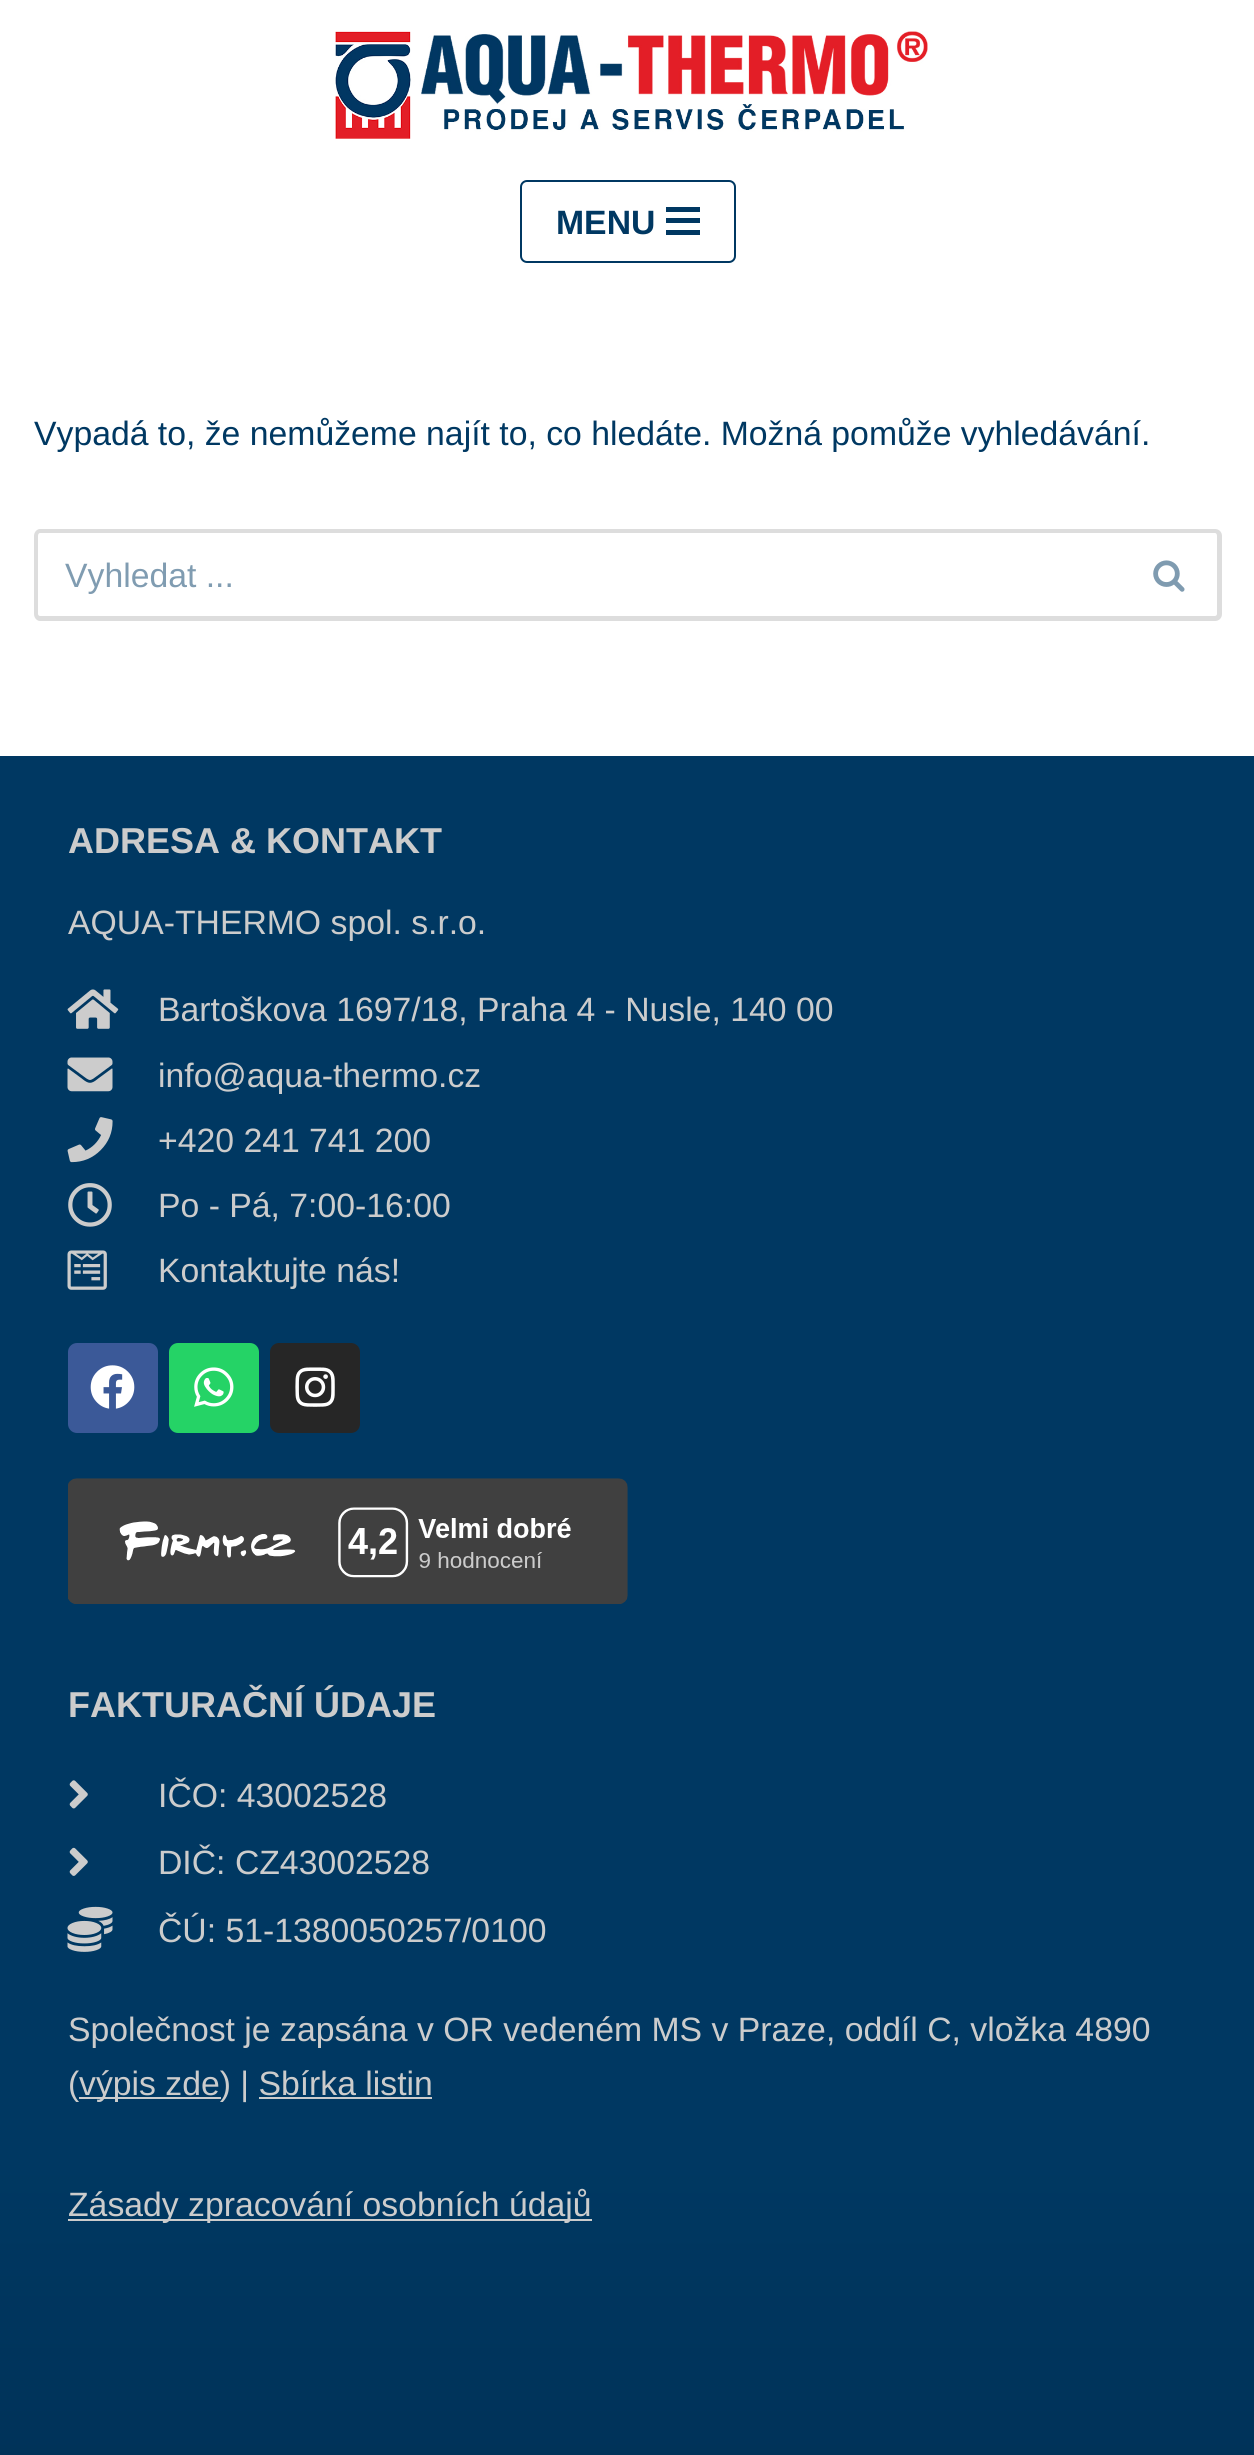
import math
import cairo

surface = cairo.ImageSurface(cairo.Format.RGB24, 1254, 2455)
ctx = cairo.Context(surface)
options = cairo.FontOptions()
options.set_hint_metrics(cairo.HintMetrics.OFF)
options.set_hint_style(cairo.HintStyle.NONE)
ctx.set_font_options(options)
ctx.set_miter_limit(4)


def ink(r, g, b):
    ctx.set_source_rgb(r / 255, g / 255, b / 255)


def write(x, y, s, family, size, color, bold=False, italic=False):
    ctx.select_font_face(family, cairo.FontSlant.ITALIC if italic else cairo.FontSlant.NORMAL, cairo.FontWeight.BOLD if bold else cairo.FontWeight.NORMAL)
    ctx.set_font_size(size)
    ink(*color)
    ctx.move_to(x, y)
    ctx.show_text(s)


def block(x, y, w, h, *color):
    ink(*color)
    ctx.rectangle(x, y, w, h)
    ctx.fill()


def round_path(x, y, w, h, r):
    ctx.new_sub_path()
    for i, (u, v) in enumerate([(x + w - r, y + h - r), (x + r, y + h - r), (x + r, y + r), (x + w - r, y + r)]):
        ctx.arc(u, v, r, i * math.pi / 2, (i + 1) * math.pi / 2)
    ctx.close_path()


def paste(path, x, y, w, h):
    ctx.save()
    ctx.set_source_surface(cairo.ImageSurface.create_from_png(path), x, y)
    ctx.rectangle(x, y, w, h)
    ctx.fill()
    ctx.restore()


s1 = dict(family="Liberation Sans", size=33.75, color=(0, 56, 98), bold=True)
s2 = dict(family="Liberation Sans", size=33.75, color=(0, 56, 98))
s3 = dict(family="Liberation Sans", size=33.75, color=(128, 156, 177))
s4 = dict(family="Liberation Sans", size=36, color=(204, 204, 204), bold=True)
s5 = dict(family="Liberation Sans", size=33.75, color=(204, 204, 204))

ink(255, 255, 255)
ctx.paint()
paste("pic1.png", 335, 31, 593, 108)
round_path(521, 181, 214, 81, 6)
ink(0, 56, 98)
ctx.stroke()
write(556, 234, "MENU", **s1)
block(666, 207, 34, 5, 0, 56, 98)
block(666, 218, 34, 5, 0, 56, 98)
block(666, 230, 34, 5, 0, 56, 98)
write(34, 445, "Vypadá to, že nemůžeme najít to, co hledáte. Možná pomůže vyhledávání.", **s2)
ink(221, 221, 221)
ctx.set_fill_rule(cairo.FillRule.EVEN_ODD)
ctx.new_path()
ctx.move_to(40, 529)
ctx.line_to(1120, 529)
ctx.line_to(1120, 621)
ctx.line_to(40, 621)
ctx.curve_to(37, 621, 34, 618, 34, 614)
ctx.line_to(34, 536)
ctx.curve_to(34, 532, 37, 529, 40, 529)
ctx.close_path()
ctx.move_to(40, 533)
ctx.line_to(1120, 533)
ctx.line_to(1120, 616)
ctx.line_to(40, 616)
ctx.curve_to(39, 616, 38, 615, 38, 614)
ctx.line_to(38, 536)
ctx.curve_to(38, 534, 39, 533, 40, 533)
ctx.close_path()
ctx.fill()
write(65, 587, "Vyhledat ...", **s3)
ink(221, 221, 221)
ctx.new_path()
ctx.move_to(1120, 529)
ctx.line_to(1215, 529)
ctx.curve_to(1219, 529, 1222, 532, 1222, 536)
ctx.line_to(1222, 614)
ctx.curve_to(1222, 618, 1219, 621, 1215, 621)
ctx.line_to(1120, 621)
ctx.close_path()
ctx.move_to(1120, 533)
ctx.line_to(1215, 533)
ctx.curve_to(1216, 533, 1217, 534, 1217, 536)
ctx.line_to(1217, 614)
ctx.curve_to(1217, 615, 1216, 616, 1215, 616)
ctx.line_to(1120, 616)
ctx.close_path()
ctx.fill()
paste("pic2.png", 1153, 560, 32, 32)
gradient = cairo.LinearGradient(628, 756, 628, 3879)
gradient.add_color_stop_rgba(0.45, 0, 0.22, 0.384, 1)
gradient.add_color_stop_rgba(1, 0, 0.09, 0.184, 1)
ctx.set_source(gradient)
ctx.rectangle(0, 756, 1254, 1699)
ctx.fill()
write(68, 853, "ADRESA & KONTAKT", **s4)
write(68, 934, "AQUA-THERMO spol. s.r.o.", **s5)
paste("pic3.png", 67, 989, 52, 40)
write(158, 1021, "Bartoškova 1697/18, Praha 4 - Nusle, 140 00", **s5)
paste("pic4.png", 67, 1057, 46, 35)
write(158, 1087, "info@aqua-thermo.cz", **s5)
paste("pic5.png", 67, 1117, 46, 46)
write(158, 1152, "+420 241 741 200", **s5)
paste("pic6.png", 68, 1183, 44, 44)
write(158, 1217, "Po - Pá, 7:00-16:00", **s5)
paste("pic7.png", 67, 1250, 40, 40)
write(158, 1282, "Kontaktujte nás!", **s5)
ink(59, 89, 152)
round_path(68, 1343, 90, 90, 9)
ctx.fill()
paste("pic8.png", 90, 1365, 45, 44)
ink(37, 211, 102)
round_path(169, 1343, 90, 90, 9)
ctx.fill()
paste("pic9.png", 194, 1367, 40, 40)
ink(38, 38, 38)
round_path(270, 1343, 90, 90, 9)
ctx.fill()
paste("pic10.png", 295, 1367, 40, 40)
paste("pic11.png", 68, 1478, 560, 126)
write(68, 1717, "FAKTURAČNÍ ÚDAJE", **s4)
paste("pic12.png", 69, 1780, 19, 29)
write(158, 1807, "IČO: 43002528", **s5)
paste("pic13.png", 69, 1847, 19, 29)
write(158, 1874, "DIČ: CZ43002528", **s5)
paste("pic14.png", 67, 1906, 46, 46)
write(158, 1942, "ČÚ: 51-1380050257/0100", **s5)
write(68, 2041, "Společnost je zapsána v OR vedeném MS v Praze, oddíl C, vložka 4890", **s5)
write(68, 2095, "(", **s5)
block(79, 2097, 142, 2, 204, 204, 204)
write(79, 2095, "výpis zde) | Sbírka listin", **s5)
block(259, 2097, 173, 2, 204, 204, 204)
block(68, 2219, 524, 2, 204, 204, 204)
write(68, 2216, "Zásady zpracování osobních údajů", **s5)
surface.write_to_png("screenshot.png")
